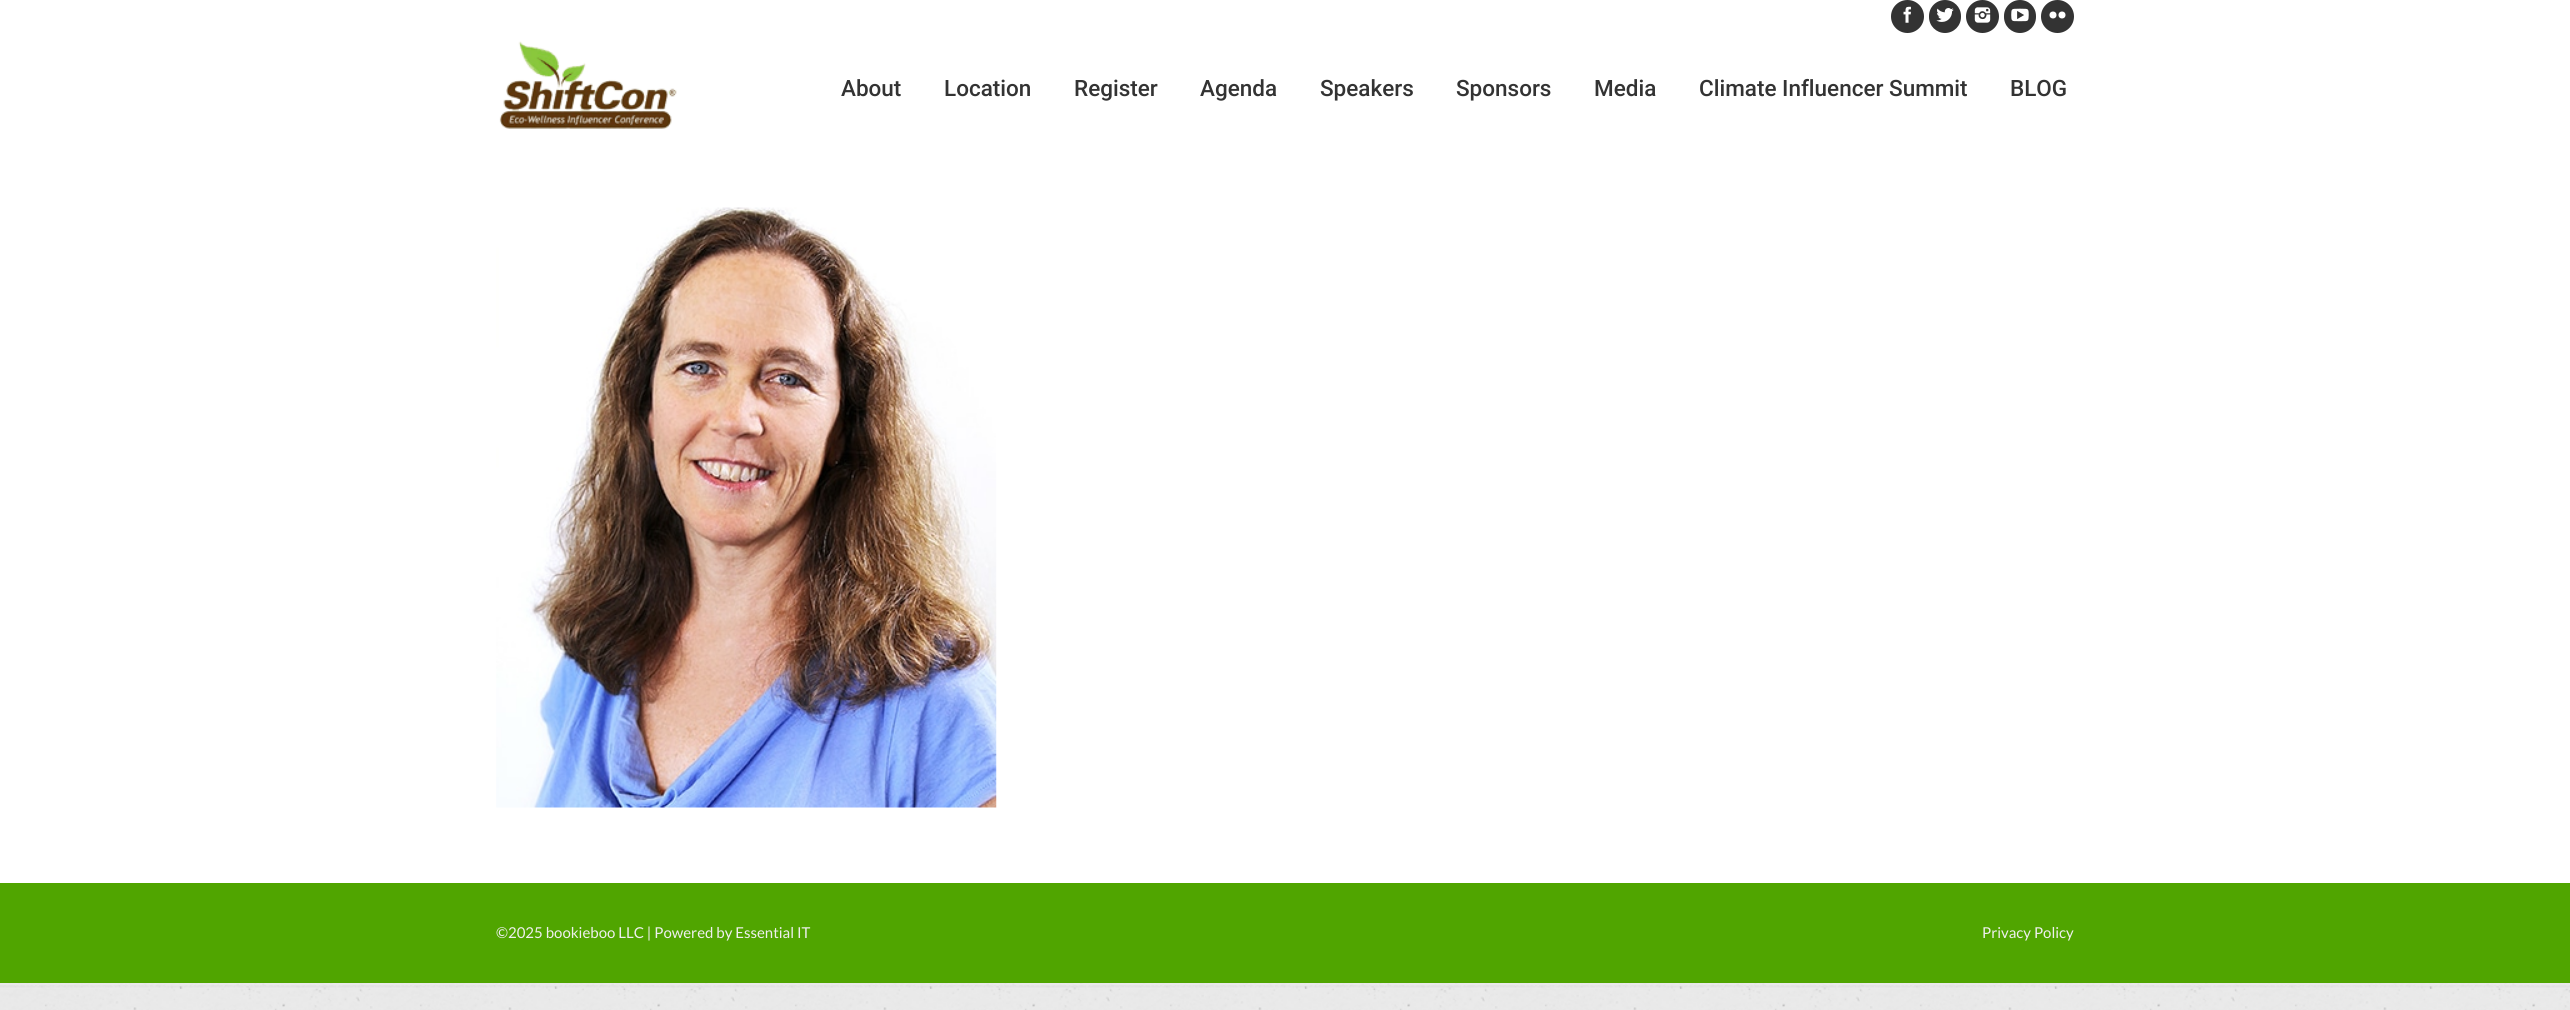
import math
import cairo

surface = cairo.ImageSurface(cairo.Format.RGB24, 2570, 1010)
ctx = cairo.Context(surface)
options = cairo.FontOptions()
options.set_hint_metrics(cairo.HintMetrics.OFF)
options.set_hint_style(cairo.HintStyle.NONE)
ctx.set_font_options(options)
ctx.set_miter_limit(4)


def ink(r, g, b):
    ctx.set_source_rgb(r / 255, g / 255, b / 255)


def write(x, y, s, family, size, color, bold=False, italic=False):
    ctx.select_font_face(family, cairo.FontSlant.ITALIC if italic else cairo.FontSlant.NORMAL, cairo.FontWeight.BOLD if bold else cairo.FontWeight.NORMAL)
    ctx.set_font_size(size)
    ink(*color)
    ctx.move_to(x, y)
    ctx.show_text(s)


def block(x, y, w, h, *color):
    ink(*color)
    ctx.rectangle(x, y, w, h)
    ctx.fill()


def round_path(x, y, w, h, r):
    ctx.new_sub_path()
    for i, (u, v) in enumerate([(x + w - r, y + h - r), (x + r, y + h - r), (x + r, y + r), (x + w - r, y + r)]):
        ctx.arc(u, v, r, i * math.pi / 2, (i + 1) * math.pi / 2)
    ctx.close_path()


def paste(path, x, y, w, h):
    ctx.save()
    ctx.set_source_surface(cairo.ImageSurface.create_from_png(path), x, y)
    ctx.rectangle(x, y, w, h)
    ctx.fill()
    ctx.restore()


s1 = dict(family="Roboto Medium", size=22.5, color=(51, 51, 51))
s2 = dict(family="Lato", size=15, color=(239, 239, 239))

ink(255, 255, 255)
ctx.paint()
paste("pic1.png", 0, 983, 2570, 27)
ink(51, 51, 51)
ctx.arc(1907.5, 16.5, 16.5, 0, 2 * math.pi)
ctx.fill()
paste("pic2.png", 1903, 6, 8, 17)
round_path(1929, 0, 32, 33, 16)
ctx.fill()
paste("pic3.png", 1936, 8, 18, 14)
ctx.arc(1982.5, 16.5, 16.5, 0, 2 * math.pi)
ctx.fill()
paste("pic4.png", 1974, 7, 17, 16)
round_path(2004, 0, 32, 33, 16)
ctx.fill()
paste("pic5.png", 2011, 8, 18, 14)
ctx.arc(2057.5, 16.5, 16.5, 0, 2 * math.pi)
ctx.fill()
ink(255, 255, 255)
ctx.arc(2053, 15, 3.5, 0, 2 * math.pi)
ctx.fill()
ctx.arc(2062, 15, 3.5, 0, 2 * math.pi)
ctx.fill()
paste("pic6.png", 499, 41, 178, 88)
write(841, 96, "About", **s1)
write(944, 96, "Location", **s1)
write(1074, 96, "Register", **s1)
write(1200, 96, "Agenda", **s1)
write(1320, 96, "Speakers", **s1)
write(1456, 96, "Sponsors", **s1)
write(1594, 96, "Media", **s1)
write(1699, 96, "Climate Influencer Summit", **s1)
write(2010, 96, "BLOG", **s1)
paste("pic7.png", 496, 207, 501, 601)
block(0, 883, 2570, 100, 80, 165, 0)
write(496, 938, "©2025 bookieboo LLC | Powered by Essential IT", **s2)
write(1982, 938, "Privacy Policy", **s2)
surface.write_to_png("screenshot.png")
